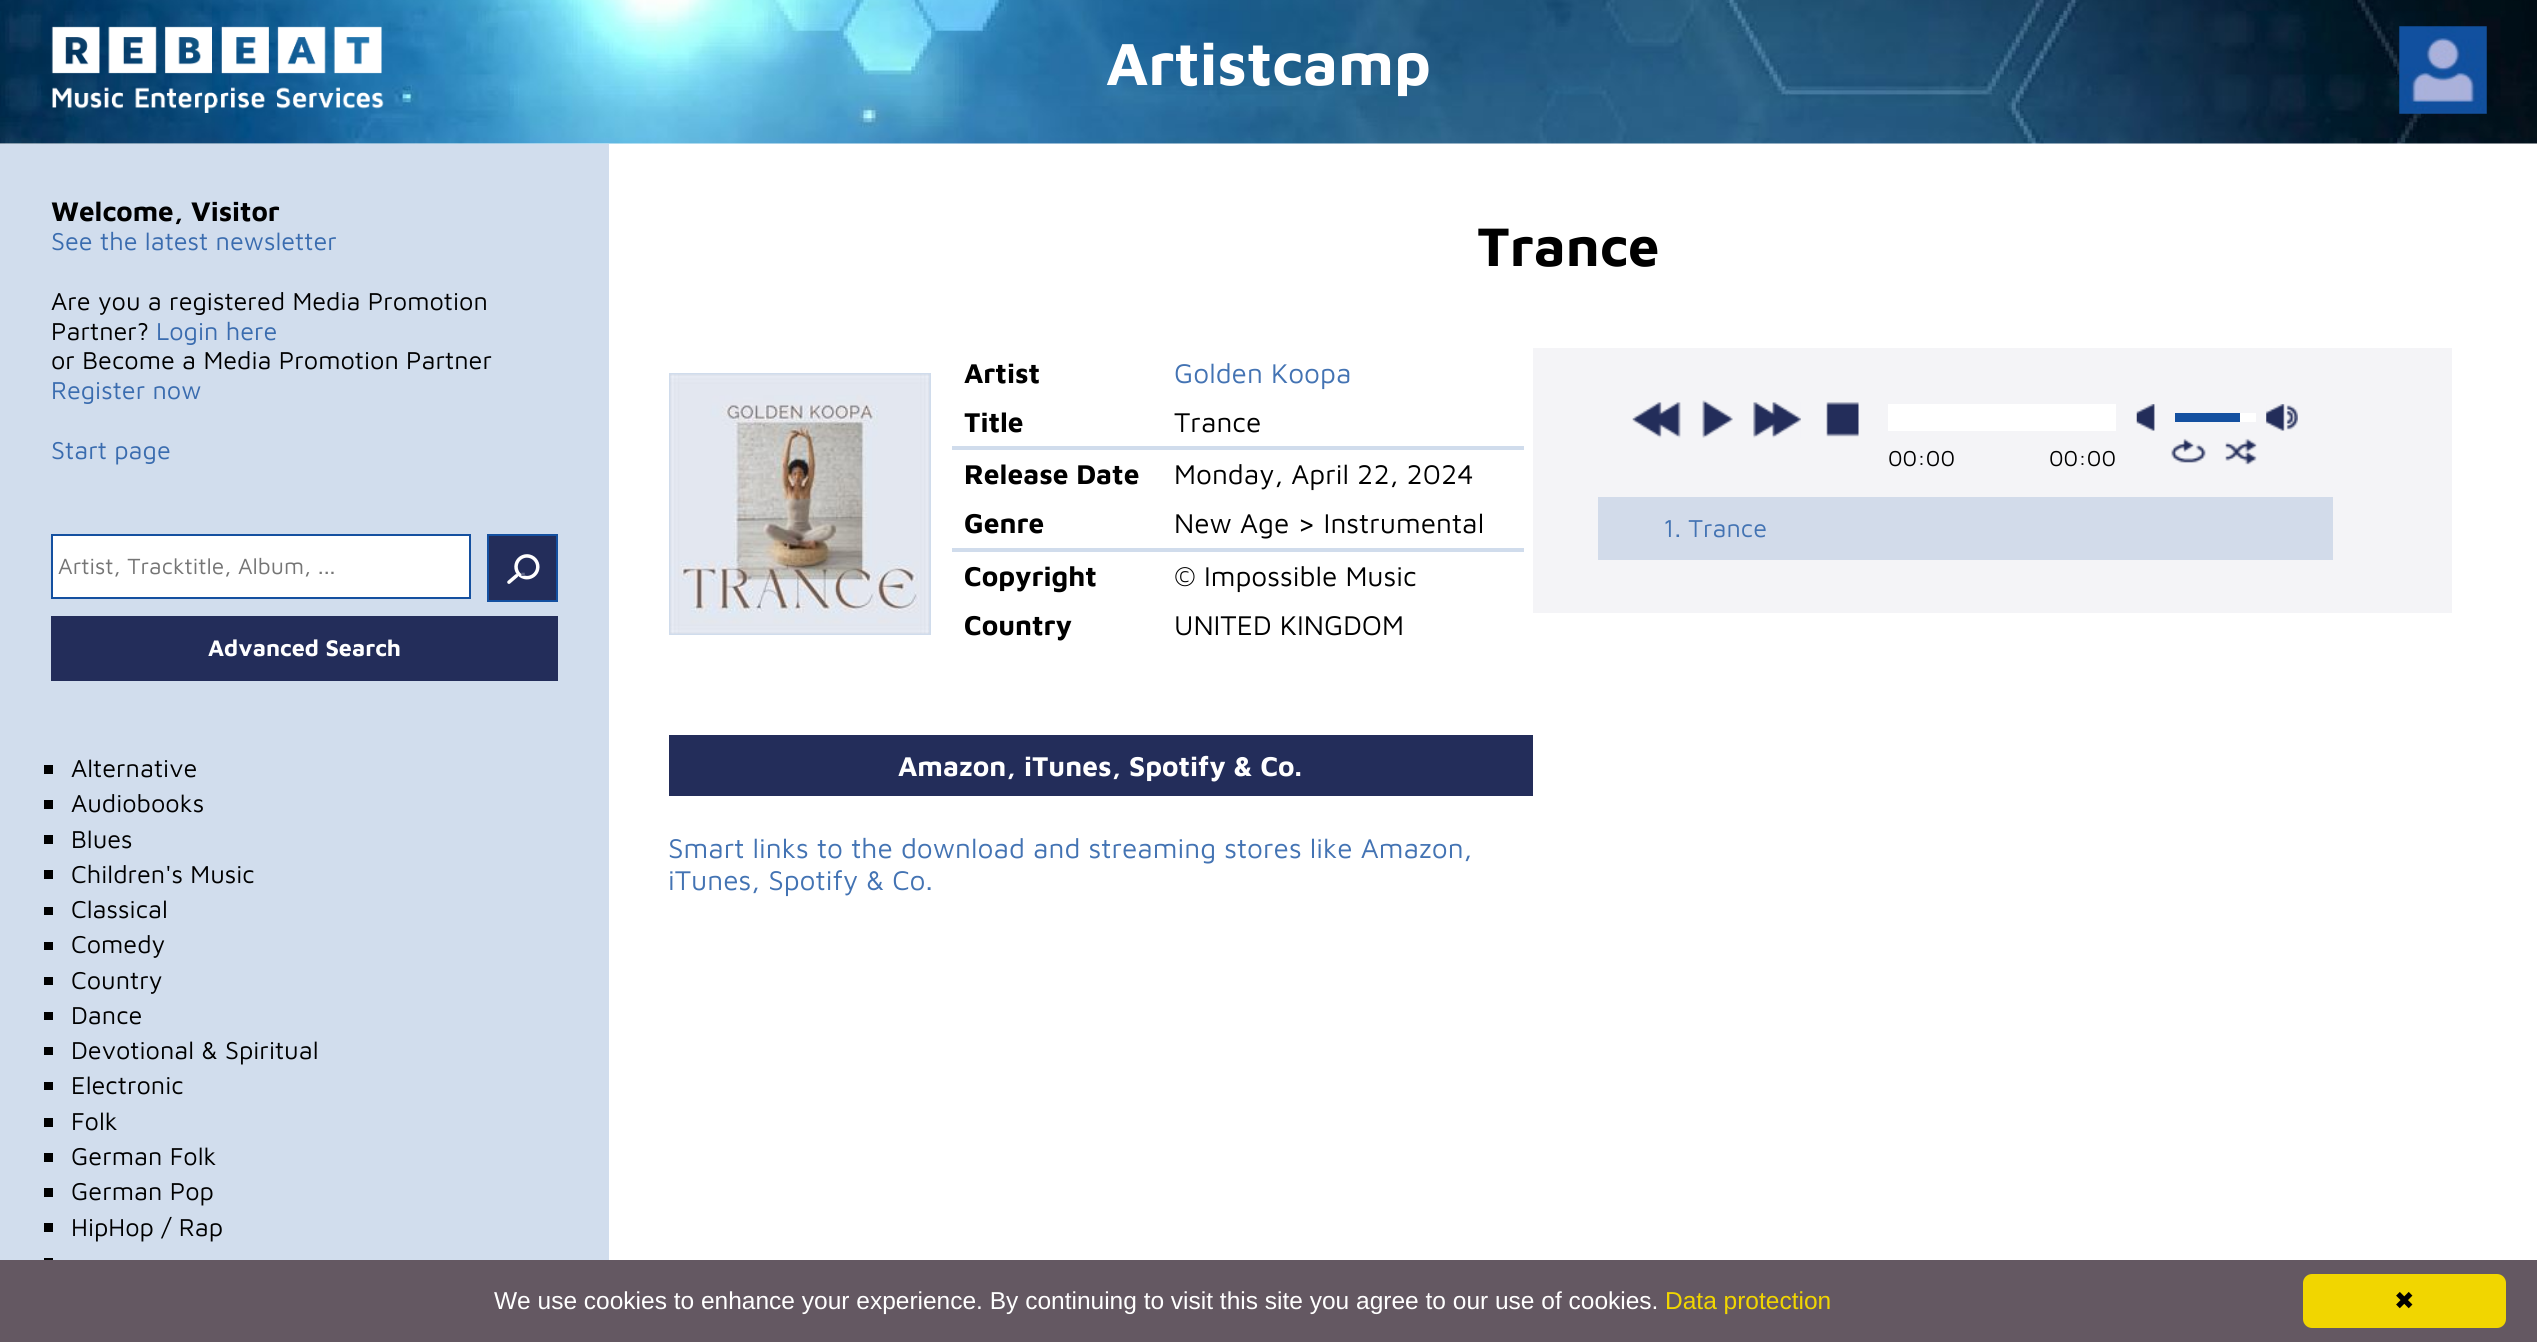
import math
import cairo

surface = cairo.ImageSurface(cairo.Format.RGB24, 2537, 1342)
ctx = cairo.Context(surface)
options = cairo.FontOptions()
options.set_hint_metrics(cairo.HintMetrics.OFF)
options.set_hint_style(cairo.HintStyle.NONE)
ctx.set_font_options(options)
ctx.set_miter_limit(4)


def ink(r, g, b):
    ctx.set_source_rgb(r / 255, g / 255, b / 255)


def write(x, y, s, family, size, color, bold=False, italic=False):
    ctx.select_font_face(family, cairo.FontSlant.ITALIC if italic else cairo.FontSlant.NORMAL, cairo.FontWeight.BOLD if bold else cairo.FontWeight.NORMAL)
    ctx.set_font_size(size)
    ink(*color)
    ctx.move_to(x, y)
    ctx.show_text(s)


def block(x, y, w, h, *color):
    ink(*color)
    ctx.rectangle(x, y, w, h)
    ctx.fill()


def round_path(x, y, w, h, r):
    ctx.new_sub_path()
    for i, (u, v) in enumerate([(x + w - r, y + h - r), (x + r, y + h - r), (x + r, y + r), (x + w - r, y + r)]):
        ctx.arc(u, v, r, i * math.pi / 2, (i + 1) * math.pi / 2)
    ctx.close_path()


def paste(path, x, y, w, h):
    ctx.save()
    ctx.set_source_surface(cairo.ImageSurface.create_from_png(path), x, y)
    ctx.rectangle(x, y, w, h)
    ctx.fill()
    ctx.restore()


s1 = dict(family="Maven Pro", size=61.25, color=(255, 255, 255), bold=True)
s2 = dict(family="Maven Pro", size=27.75, color=(0, 0, 0), bold=True)
s3 = dict(family="Maven Pro", size=25.25, color=(58, 108, 175))
s4 = dict(family="Maven Pro", size=25.25, color=(0, 0, 0))
s5 = dict(family="Maven Pro", size=22.75, color=(117, 117, 117))
s6 = dict(family="Maven Pro", size=23.25, color=(96, 103, 136), bold=True)
s7 = dict(family="Maven Pro", size=23.25, color=(255, 255, 255), bold=True)
s8 = dict(family="Maven Pro", size=56, color=(0, 0, 0), bold=True)
s9 = dict(family="Maven Pro", size=28, color=(0, 0, 0), bold=True)
s10 = dict(family="Maven Pro", size=28, color=(67, 115, 179))
s11 = dict(family="Maven Pro", size=28, color=(0, 0, 0))
s12 = dict(family="Maven Pro", size=22.5, color=(0, 0, 0))
s13 = dict(family="Maven Pro", size=25.25, color=(67, 115, 179))
s14 = dict(family="Maven Pro", size=28, color=(255, 255, 255), bold=True)
s15 = dict(family="Liberation Sans", size=24.5, color=(255, 255, 255))
s16 = dict(family="Liberation Sans", size=24.5, color=(241, 214, 0))
s17 = dict(family="DejaVu Sans", size=24.5, color=(0, 0, 0))

ink(255, 255, 255)
ctx.paint()
paste("pic1.png", 0, 0, 2537, 144)
paste("pic2.png", 51, 26, 333, 87)
write(1106, 85, "Artistcamp", **s1)
paste("pic3.png", 2399, 26, 88, 88)
block(0, 144, 609, 1116, 209, 221, 237)
write(51, 221, "Welcome, Visitor", **s2)
write(51, 250, "See the latest newsletter", **s3)
write(51, 310, "Are you a registered Media Promotion", **s4)
write(51, 340, "Partner?", **s4)
write(156, 340, "Login here", **s3)
write(51, 369, "or Become a Media Promotion Partner", **s4)
write(51, 399, "Register now", **s3)
write(51, 459, "Start page", **s3)
ink(255, 255, 255)
ctx.rectangle(52, 535, 418, 63)
ctx.fill_preserve()
ink(20, 80, 160)
ctx.stroke()
write(58, 574, "Artist, Tracktitle, Album, ...", **s5)
block(489, 536, 67, 64, 35, 45, 90)
paste("pic4.png", 507, 554, 33, 30)
ctx.rectangle(488, 535, 69, 66)
ink(20, 80, 160)
ctx.stroke()
write(520, 576, ".", **s6)
block(51, 616, 507, 65, 35, 45, 90)
write(208, 656, "Advanced Search", **s7)
block(44, 765, 9, 9, 0, 0, 0)
write(71, 777, "Alternative", **s4)
block(44, 800, 9, 9, 0, 0, 0)
write(71, 812, "Audiobooks", **s4)
block(44, 835, 9, 9, 0, 0, 0)
write(71, 848, "Blues", **s4)
block(44, 870, 9, 9, 0, 0, 0)
write(71, 883, "Children's Music", **s4)
block(44, 907, 9, 8, 0, 0, 0)
write(71, 918, "Classical", **s4)
block(44, 942, 9, 8, 0, 0, 0)
write(71, 953, "Comedy", **s4)
block(44, 977, 9, 8, 0, 0, 0)
write(71, 989, "Country", **s4)
block(44, 1012, 9, 8, 0, 0, 0)
write(71, 1024, "Dance", **s4)
block(44, 1047, 9, 8, 0, 0, 0)
write(71, 1059, "Devotional & Spiritual", **s4)
block(44, 1082, 9, 8, 0, 0, 0)
write(71, 1094, "Electronic", **s4)
block(44, 1118, 9, 9, 0, 0, 0)
write(71, 1130, "Folk", **s4)
block(44, 1153, 9, 9, 0, 0, 0)
write(71, 1165, "German Folk", **s4)
block(44, 1188, 9, 9, 0, 0, 0)
write(71, 1200, "German Pop", **s4)
block(44, 1223, 9, 9, 0, 0, 0)
write(71, 1236, "HipHop / Rap", **s4)
block(44, 1258, 9, 2, 0, 0, 0)
write(1477, 266, "Trance", **s8)
ctx.rectangle(670, 374, 260, 260)
ink(208, 220, 236)
ctx.stroke()
paste("pic5.png", 670, 374, 260, 260)
write(964, 383, "Artist", **s9)
write(1174, 383, "Golden Koopa", **s10)
write(964, 432, "Title", **s9)
write(1174, 432, "Trance", **s11)
block(952, 446, 572, 4, 208, 220, 236)
write(964, 484, "Release Date", **s9)
write(1174, 484, "Monday, April 22, 2024", **s11)
write(964, 533, "Genre", **s9)
write(1174, 533, "New Age > Instrumental", **s11)
block(952, 548, 572, 4, 208, 220, 236)
write(964, 586, "Copyright", **s9)
write(1174, 586, "© Impossible Music", **s11)
write(964, 635, "Country", **s9)
write(1174, 635, "UNITED KINGDOM", **s11)
block(1533, 348, 919, 265, 244, 244, 247)
paste("pic6.png", 1632, 402, 49, 36)
paste("pic7.png", 1702, 400, 31, 38)
paste("pic8.png", 1753, 402, 48, 36)
paste("pic9.png", 1826, 402, 33, 35)
paste("pic10.png", 2136, 404, 19, 27)
paste("pic11.png", 2266, 404, 32, 27)
block(1888, 404, 228, 27, 255, 255, 255)
block(2240, 413, 16, 9, 255, 255, 255)
block(2175, 413, 65, 9, 20, 80, 160)
write(1888, 466, "00:00", **s12)
write(2049, 466, "00:00", **s12)
paste("pic12.png", 2171, 438, 35, 25)
paste("pic13.png", 2225, 438, 32, 27)
block(1598, 497, 735, 63, 210, 219, 234)
write(1663, 537, "1. Trance", **s13)
block(669, 735, 864, 61, 35, 45, 90)
write(898, 776, "Amazon, iTunes, Spotify & Co.", **s14)
write(668, 858, "Smart links to the download and streaming stores like Amazon,", **s10)
write(668, 890, "iTunes, Spotify & Co.", **s10)
block(0, 1260, 2537, 82, 100, 88, 98)
write(494, 1309, "We use cookies to enhance your experience. By continuing to visit this site you agree to our use of cookies.", **s15)
write(1665, 1309, "Data protection", **s16)
round_path(2303, 1274, 203, 54, 9)
ctx.fill()
write(2394, 1309, "✖", **s17)
surface.write_to_png("screenshot.png")
